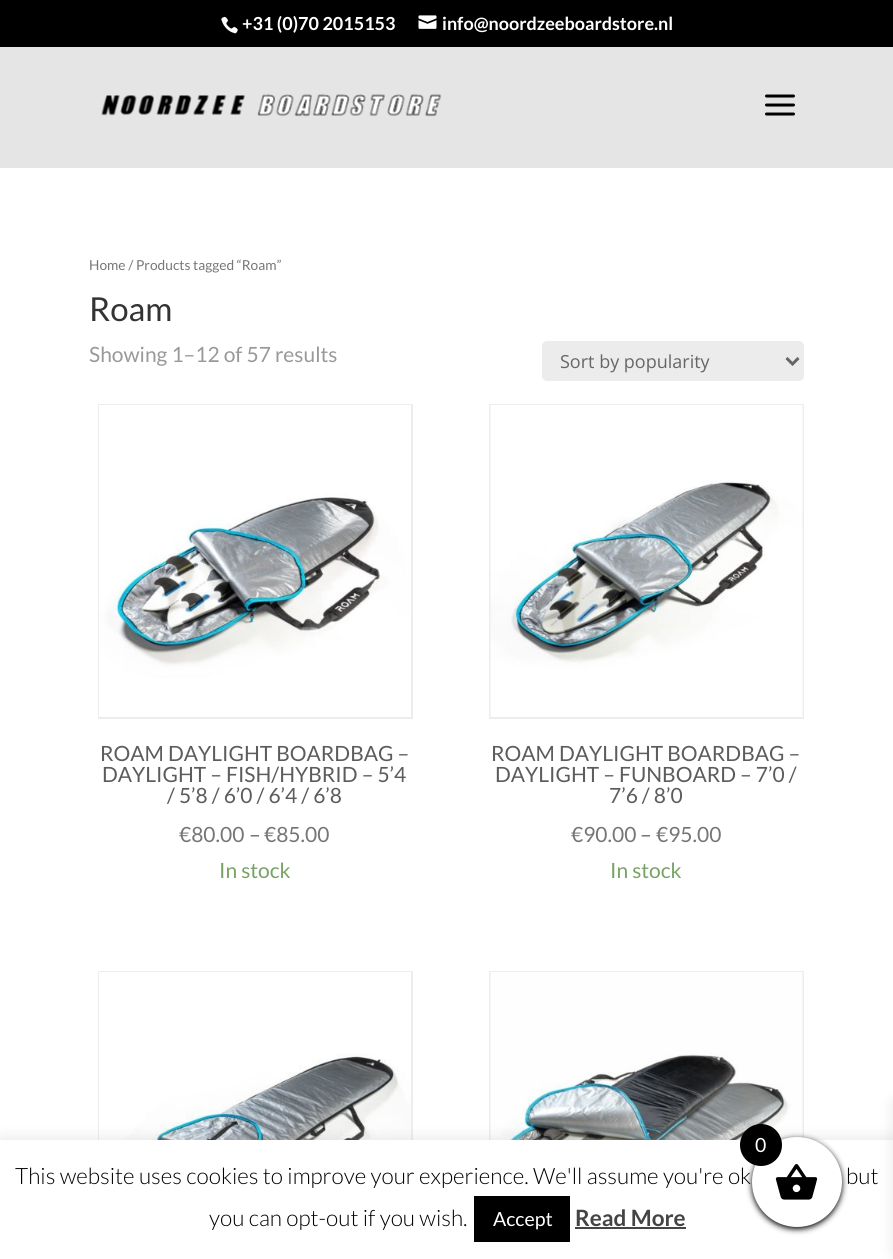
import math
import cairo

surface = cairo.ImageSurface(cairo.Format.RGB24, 893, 1259)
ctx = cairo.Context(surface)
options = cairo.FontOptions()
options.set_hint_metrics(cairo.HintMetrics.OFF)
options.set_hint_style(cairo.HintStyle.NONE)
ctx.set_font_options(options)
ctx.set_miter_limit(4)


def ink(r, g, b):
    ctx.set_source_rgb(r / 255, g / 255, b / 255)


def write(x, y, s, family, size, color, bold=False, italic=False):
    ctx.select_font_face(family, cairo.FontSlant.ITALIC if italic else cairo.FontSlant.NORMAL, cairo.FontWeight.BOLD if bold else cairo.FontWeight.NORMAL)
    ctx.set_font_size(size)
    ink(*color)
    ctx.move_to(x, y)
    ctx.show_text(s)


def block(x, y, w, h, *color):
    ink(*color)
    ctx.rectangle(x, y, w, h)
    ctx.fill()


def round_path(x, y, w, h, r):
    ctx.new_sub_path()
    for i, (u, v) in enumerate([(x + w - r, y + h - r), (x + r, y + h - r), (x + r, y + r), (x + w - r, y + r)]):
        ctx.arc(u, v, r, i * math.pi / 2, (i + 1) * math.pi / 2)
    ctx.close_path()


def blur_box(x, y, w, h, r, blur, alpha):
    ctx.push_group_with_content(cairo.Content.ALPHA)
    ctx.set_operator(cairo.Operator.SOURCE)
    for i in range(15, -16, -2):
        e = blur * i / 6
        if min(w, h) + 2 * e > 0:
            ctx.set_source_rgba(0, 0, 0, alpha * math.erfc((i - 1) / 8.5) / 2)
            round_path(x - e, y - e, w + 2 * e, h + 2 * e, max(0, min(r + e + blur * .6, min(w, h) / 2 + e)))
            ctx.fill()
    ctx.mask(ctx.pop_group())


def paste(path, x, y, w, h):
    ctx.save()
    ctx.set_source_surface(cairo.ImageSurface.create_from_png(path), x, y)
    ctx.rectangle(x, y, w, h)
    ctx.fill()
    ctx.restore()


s1 = dict(family="Lato", size=18, color=(255, 255, 255), bold=True)
s2 = dict(family="Lato", size=13.75, color=(118, 118, 118))
s3 = dict(family="Lato", size=33, color=(51, 51, 51))
s4 = dict(family="Lato", size=21, color=(153, 153, 153))
s5 = dict(family="Open Sans", size=18, color=(102, 102, 102))
s6 = dict(family="Lato", size=21, color=(92, 92, 92))
s7 = dict(family="Lato", size=21, color=(118, 118, 118))
s8 = dict(family="Lato", size=21, color=(102, 102, 102))
s9 = dict(family="Lato", size=21, color=(119, 164, 100))
s10 = dict(family="Lato", size=19.5, color=(255, 255, 255))
s11 = dict(family="Lato Light", size=22.5, color=(0, 0, 0))
s12 = dict(family="Lato", size=22.5, color=(68, 68, 68), bold=True)

ink(255, 255, 255)
ctx.paint()
block(0, 0, 893, 47, 0, 0, 0)
paste("pic1.png", 221, 16, 17, 18)
write(242, 30, "+31 (0)70 2015153", **s1)
paste("pic2.png", 418, 15, 19, 14)
write(442, 30, "info@noordzeeboardstore.nl", **s1)
block(0, 167, 893, 1, 230, 230, 230)
block(0, 47, 893, 120, 229, 229, 229)
paste("pic3.png", 101, 94, 341, 23)
paste("pic4.png", 765, 94, 30, 22)
write(89, 270, "Home / Products tagged “Roam”", **s2)
write(89, 321, "Roam", **s3)
write(89, 362, "Showing 1–12 of 57 results", **s4)
ink(236, 236, 236)
round_path(542, 341, 262, 40, 5)
ctx.fill()
ctx.new_path()
ctx.move_to(786.5, 358)
ctx.line_to(792.5, 364)
ctx.line_to(798.5, 358)
ink(102, 102, 102)
ctx.set_line_width(3)
ctx.stroke()
write(560, 368, "Sort by popularity", **s5)
ctx.rectangle(99, 405, 313, 313)
ink(237, 237, 237)
ctx.set_line_width(2)
ctx.stroke()
paste("pic5.png", 99, 405, 312, 312)
write(100, 761, "ROAM DAYLIGHT BOARDBAG –", **s6)
write(102, 782, "DAYLIGHT – FISH/HYBRID – 5’4", **s6)
write(167, 803, "/ 5’8 / 6’0 / 6’4 / 6’8", **s6)
write(179, 842, "€80.00", **s7)
write(249, 842, "–", **s8)
write(264, 842, "€85.00", **s7)
write(219, 878, "In stock", **s9)
ctx.rectangle(490, 405, 313, 313)
ink(237, 237, 237)
ctx.stroke()
paste("pic6.png", 490, 405, 313, 312)
write(491, 761, "ROAM DAYLIGHT BOARDBAG –", **s6)
write(495, 782, "DAYLIGHT – FUNBOARD – 7’0 /", **s6)
write(609, 803, "7’6 / 8’0", **s6)
write(571, 842, "€90.00", **s7)
write(640, 842, "–", **s8)
write(656, 842, "€95.00", **s7)
write(610, 878, "In stock", **s9)
ctx.rectangle(99, 972, 313, 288)
ink(237, 237, 237)
ctx.stroke()
paste("pic7.png", 99, 972, 312, 168)
ctx.rectangle(490, 972, 313, 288)
ctx.stroke()
paste("pic8.png", 490, 972, 313, 168)
ink(172, 171, 171)
blur_box(0, 1139, 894, 120, 0, 7.5, 0.3)
block(0, 1140, 893, 119, 255, 255, 255)
ink(0, 0, 0)
blur_box(752, 1139, 90, 90, 45, 3, 1)
ink(255, 255, 255)
ctx.arc(797, 1182, 45, 0, 2 * math.pi)
ctx.fill()
paste("pic9.png", 775, 1164, 43, 36)
ink(0, 0, 0)
ctx.arc(761, 1145, 21, 0, 2 * math.pi)
ctx.fill()
write(755, 1152, "0", **s10)
ink(0, 0, 0)
blur_box(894, 1103, 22, 150, 0, 7.5, 0.1)
write(15, 1184, "This website uses cookies to improve your experience. We'll assume you're ok", **s11)
write(846, 1184, "but", **s11)
write(209, 1226, "you can opt-out if you wish.", **s11)
block(474, 1196, 96, 46, 0, 0, 0)
write(493, 1226, "Accept", **s10)
write(575, 1226, "Read More", **s12)
block(575, 1227, 111, 2, 68, 68, 68)
surface.write_to_png("screenshot.png")
